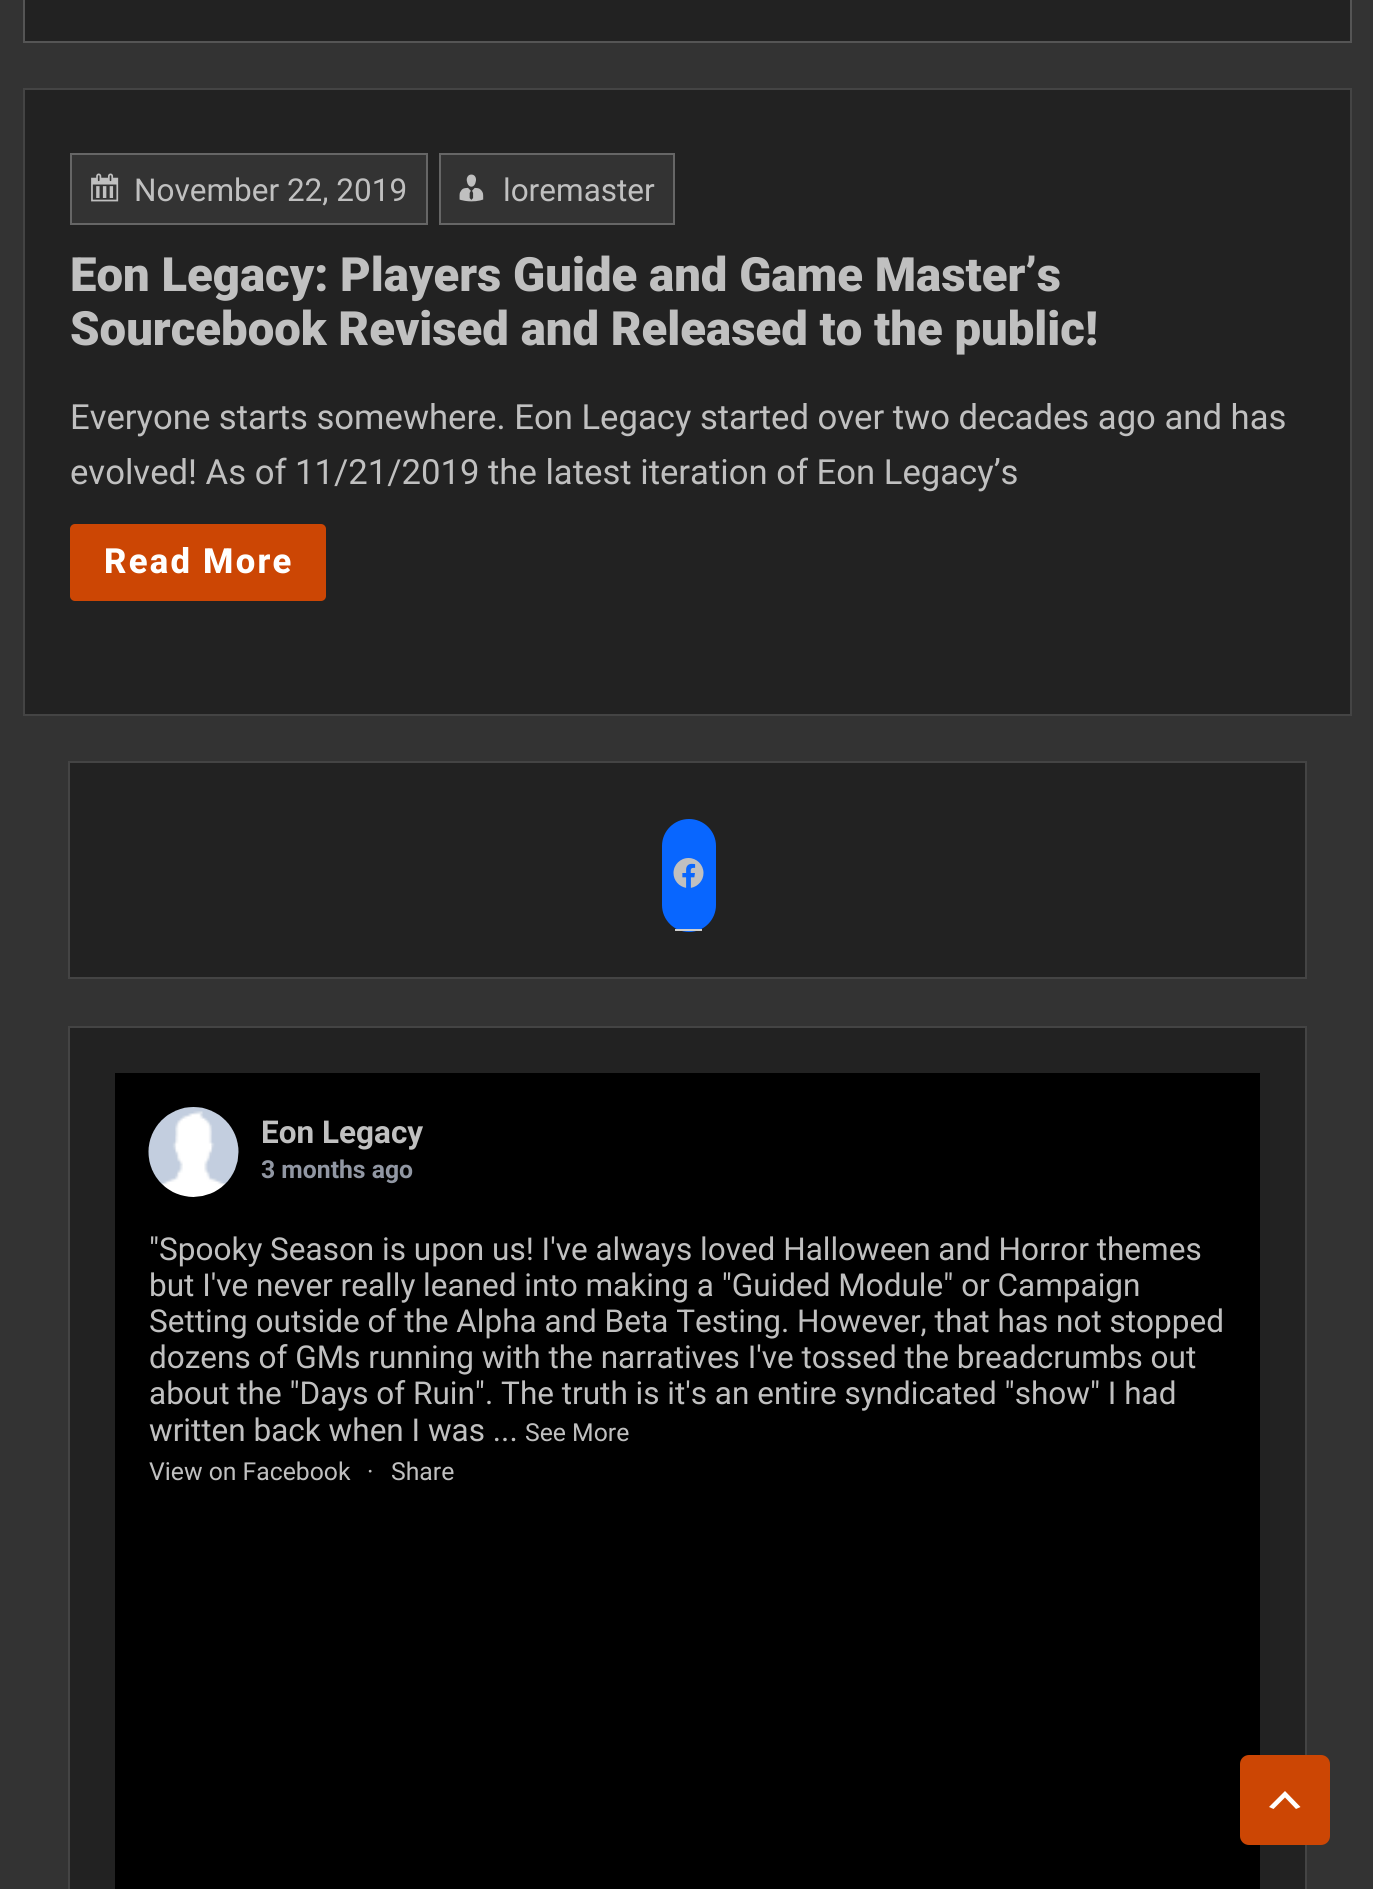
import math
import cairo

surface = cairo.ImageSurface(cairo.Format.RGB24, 1373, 1889)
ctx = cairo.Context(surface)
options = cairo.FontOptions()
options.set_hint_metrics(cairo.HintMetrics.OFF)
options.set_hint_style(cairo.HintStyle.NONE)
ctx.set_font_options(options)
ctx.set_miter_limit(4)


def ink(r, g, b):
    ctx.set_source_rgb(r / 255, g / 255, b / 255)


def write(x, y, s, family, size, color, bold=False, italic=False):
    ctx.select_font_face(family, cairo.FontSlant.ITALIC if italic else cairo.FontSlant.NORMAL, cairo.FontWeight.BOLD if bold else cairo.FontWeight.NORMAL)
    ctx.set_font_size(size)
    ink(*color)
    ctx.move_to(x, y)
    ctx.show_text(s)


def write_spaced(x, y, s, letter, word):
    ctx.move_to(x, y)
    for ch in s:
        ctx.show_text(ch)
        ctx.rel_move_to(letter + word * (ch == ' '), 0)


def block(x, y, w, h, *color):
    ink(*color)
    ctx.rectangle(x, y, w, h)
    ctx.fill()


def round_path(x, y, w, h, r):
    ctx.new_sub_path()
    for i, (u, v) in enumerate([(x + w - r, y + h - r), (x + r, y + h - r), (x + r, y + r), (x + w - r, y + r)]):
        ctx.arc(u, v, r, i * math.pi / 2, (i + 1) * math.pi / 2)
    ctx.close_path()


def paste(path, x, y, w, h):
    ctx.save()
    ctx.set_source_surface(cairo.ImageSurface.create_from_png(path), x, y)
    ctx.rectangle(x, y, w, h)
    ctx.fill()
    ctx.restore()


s1 = dict(family="Roboto", size=31.5, color=(192, 192, 192))
s2 = dict(family="Roboto Black", size=47.25, color=(192, 192, 192))
s3 = dict(family="Roboto", size=34.65, color=(192, 192, 192))
s4 = dict(family="Roboto", size=31.5, color=(192, 192, 192), bold=True)
s5 = dict(family="Roboto", size=24.75, color=(145, 151, 163), bold=True)
s6 = dict(family="Roboto", size=24.75, color=(192, 192, 192))

ink(51, 51, 51)
ctx.paint()
ink(34, 34, 34)
ctx.rectangle(24, -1, 1327, 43)
ctx.fill_preserve()
ink(85, 85, 85)
ctx.stroke()
ink(34, 34, 34)
ctx.rectangle(24, 89, 1327, 626)
ctx.fill_preserve()
ink(68, 68, 68)
ctx.stroke()
ink(51, 51, 51)
ctx.rectangle(71, 154, 356, 70)
ctx.fill_preserve()
ink(102, 102, 102)
ctx.stroke()
paste("pic1.png", 91, 173, 28, 29)
write(134, 201, "November 22, 2019", **s1)
ink(51, 51, 51)
ctx.rectangle(440, 154, 234, 70)
ctx.fill_preserve()
ink(102, 102, 102)
ctx.stroke()
paste("pic2.png", 459, 174, 25, 28)
write(503, 201, "loremaster", **s1)
write(70, 291, "Eon Legacy: Players Guide and Game Master’s", **s2)
write(70, 345, "Sourcebook Revised and Released to the public!", **s2)
write(70, 429, "Everyone starts somewhere. Eon Legacy started over two decades ago and has", **s3)
write(70, 484, "evolved! As of 11/21/2019 the latest iteration of Eon Legacy’s", **s3)
ink(204, 70, 4)
round_path(70, 524, 256, 77, 5)
ctx.fill()
ctx.select_font_face("Roboto ExtraBold")
ink(255, 255, 255)
write_spaced(104, 573, "Read More", 2.25, 0)
ink(34, 34, 34)
ctx.rectangle(69, 762, 1237, 216)
ctx.fill_preserve()
ink(68, 68, 68)
ctx.stroke()
ink(8, 102, 255)
round_path(662, 819, 54, 113, 27)
ctx.fill()
block(675, 929, 27, 2, 206, 206, 206)
paste("pic3.png", 673, 858, 31, 30)
ink(34, 34, 34)
ctx.rectangle(69, 1027, 1237, 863)
ctx.fill_preserve()
ink(68, 68, 68)
ctx.stroke()
block(115, 1073, 1145, 816, 0, 0, 0)
paste("pic4.png", 148, 1107, 91, 90)
write(261, 1143, "Eon Legacy", **s4)
write(261, 1178, "3 months ago", **s5)
write(149, 1260, "\"Spooky Season is upon us! I've always loved Halloween and Horror themes", **s1)
write(149, 1296, "but I've never really leaned into making a \"Guided Module\" or Campaign", **s1)
write(149, 1332, "Setting outside of the Alpha and Beta Testing. However, that has not stopped", **s1)
write(149, 1368, "dozens of GMs running with the narratives I've tossed the breadcrumbs out", **s1)
write(149, 1404, "about the \"Days of Ruin\". The truth is it's an entire syndicated \"show\" I had", **s1)
write(149, 1441, "written back when I was ...", **s1)
write(525, 1441, "See More", **s6)
write(149, 1480, "View on Facebook", **s6)
write(367, 1480, "·", **s6)
write(391, 1480, "Share", **s6)
ink(204, 70, 4)
round_path(1240, 1755, 90, 90, 9)
ctx.fill()
ink(255, 255, 255)
ctx.new_path()
ctx.move_to(1296, 1809)
ctx.line_to(1285, 1797.5)
ctx.line_to(1273.5, 1809)
ctx.line_to(1269, 1807)
ctx.line_to(1285, 1791)
ctx.line_to(1300.5, 1807)
ctx.close_path()
ctx.fill()
surface.write_to_png("screenshot.png")
